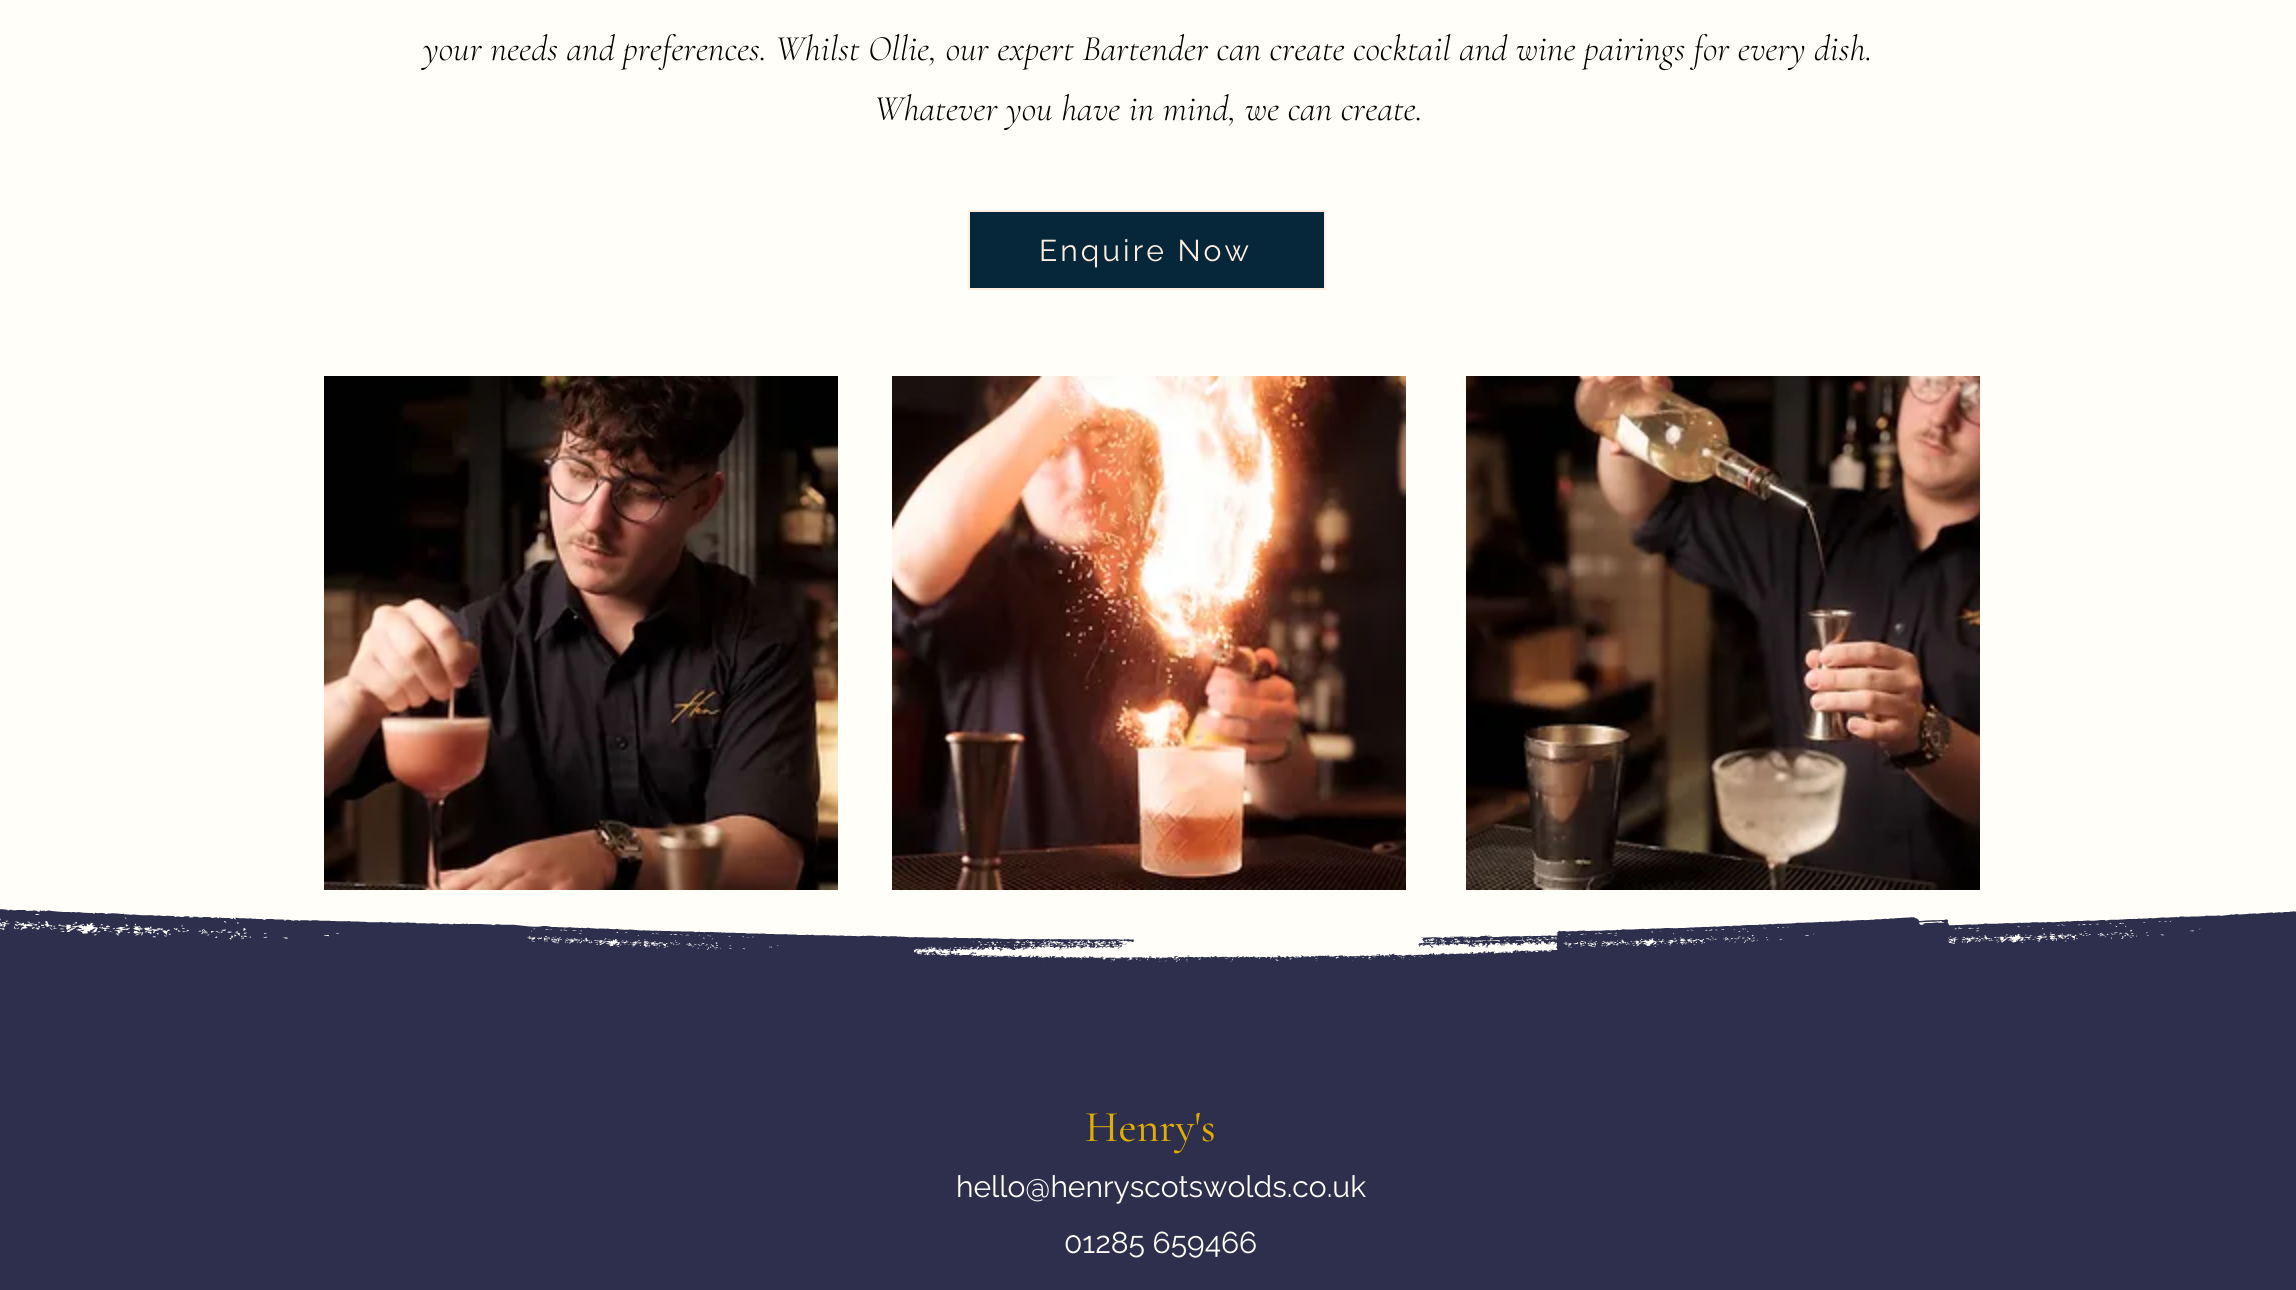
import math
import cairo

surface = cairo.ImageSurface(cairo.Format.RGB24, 2296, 1290)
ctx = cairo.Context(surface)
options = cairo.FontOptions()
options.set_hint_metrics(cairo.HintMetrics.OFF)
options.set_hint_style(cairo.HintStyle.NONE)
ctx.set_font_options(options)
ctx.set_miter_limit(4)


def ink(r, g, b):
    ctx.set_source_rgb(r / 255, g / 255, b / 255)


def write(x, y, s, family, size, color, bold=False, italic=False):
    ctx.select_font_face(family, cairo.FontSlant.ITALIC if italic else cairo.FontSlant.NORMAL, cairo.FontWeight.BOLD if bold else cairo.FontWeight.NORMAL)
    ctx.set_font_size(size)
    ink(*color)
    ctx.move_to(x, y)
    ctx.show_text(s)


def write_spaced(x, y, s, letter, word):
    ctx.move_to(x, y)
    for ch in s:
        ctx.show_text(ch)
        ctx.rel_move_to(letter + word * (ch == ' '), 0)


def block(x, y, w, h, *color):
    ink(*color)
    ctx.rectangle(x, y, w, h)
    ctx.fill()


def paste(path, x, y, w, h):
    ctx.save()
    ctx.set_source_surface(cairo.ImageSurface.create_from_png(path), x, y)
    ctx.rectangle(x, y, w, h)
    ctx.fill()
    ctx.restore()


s1 = dict(family="Cormorant Garamond Light", size=36, color=(0, 0, 0), italic=True)
s2 = dict(family="Cormorant Garamond Medium", size=44, color=(225, 173, 1))
s3 = dict(family="Raleway", size=30, color=(255, 254, 248))

ink(46, 46, 77)
ctx.paint()
block(0, 0, 2296, 962, 255, 254, 248)
write(423, 60, "your needs and preferences. Whilst Ollie, our expert Bartender can create cocktail and wine pairings for every dish.", **s1)
write(874, 120, "Whatever you have in mind, we can create.", **s1)
ink(6, 39, 58)
ctx.rectangle(969, 211, 356, 78)
ctx.fill_preserve()
ink(255, 238, 224)
ctx.stroke()
ctx.select_font_face("Raleway")
ctx.set_font_size(30)
write_spaced(1039, 261, "Enquire Now", 3, 0)
paste("pic1.png", 324, 376, 514, 514)
paste("pic2.png", 892, 376, 514, 514)
paste("pic3.png", 1466, 376, 514, 514)
paste("pic4.png", 0, 909, 2296, 97)
write(1085, 1141, "Henry's", **s2)
write(956, 1197, "hello@henryscotswolds.co.uk", **s3)
write(1064, 1253, "01285 659466", **s3)
surface.write_to_png("screenshot.png")
